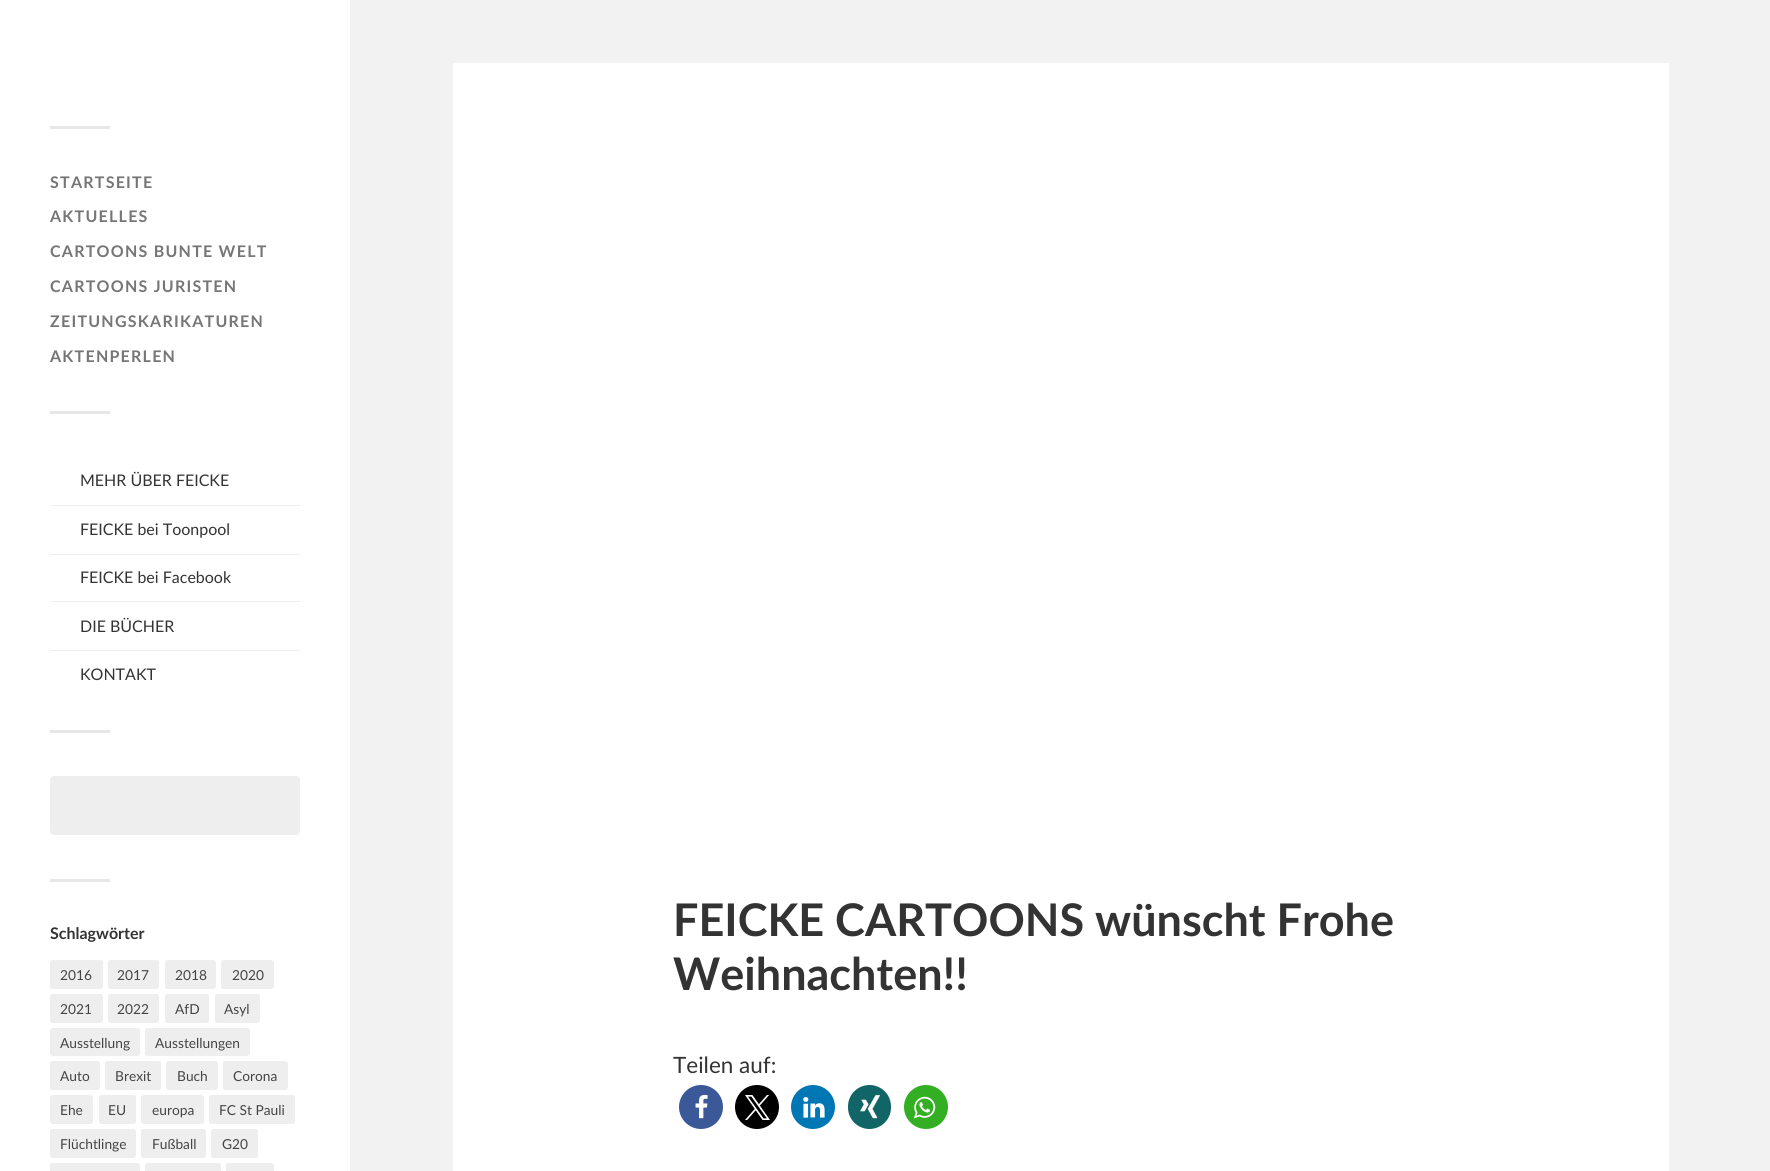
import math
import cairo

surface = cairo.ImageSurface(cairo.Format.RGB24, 1770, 1171)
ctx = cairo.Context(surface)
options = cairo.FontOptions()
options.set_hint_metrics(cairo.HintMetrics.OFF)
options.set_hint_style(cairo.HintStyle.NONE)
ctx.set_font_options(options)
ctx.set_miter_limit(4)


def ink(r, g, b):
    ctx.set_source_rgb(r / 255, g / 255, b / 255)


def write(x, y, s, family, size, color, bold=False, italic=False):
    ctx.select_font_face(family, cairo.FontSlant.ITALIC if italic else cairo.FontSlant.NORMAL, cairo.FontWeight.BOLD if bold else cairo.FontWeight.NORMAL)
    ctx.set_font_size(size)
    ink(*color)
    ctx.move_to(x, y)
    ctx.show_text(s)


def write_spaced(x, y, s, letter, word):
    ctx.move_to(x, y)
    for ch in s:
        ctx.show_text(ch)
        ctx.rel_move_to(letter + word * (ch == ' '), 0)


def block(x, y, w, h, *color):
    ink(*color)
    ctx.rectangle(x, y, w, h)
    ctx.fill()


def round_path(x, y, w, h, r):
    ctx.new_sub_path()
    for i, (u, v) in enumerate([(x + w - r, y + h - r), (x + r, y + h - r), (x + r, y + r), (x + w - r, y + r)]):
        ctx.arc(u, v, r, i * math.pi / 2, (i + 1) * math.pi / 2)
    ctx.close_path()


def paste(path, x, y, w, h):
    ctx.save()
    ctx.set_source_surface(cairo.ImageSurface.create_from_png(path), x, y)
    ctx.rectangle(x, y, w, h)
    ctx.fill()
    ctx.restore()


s1 = dict(family="Lato", size=16, color=(51, 51, 51))
s2 = dict(family="Lato", size=16, color=(51, 51, 51), bold=True)
s3 = dict(family="Lato", size=13.75, color=(68, 68, 68))
s4 = dict(family="Lato", size=45, color=(51, 51, 51), bold=True)
s5 = dict(family="Lato", size=22.5, color=(51, 51, 51))

ink(242, 242, 242)
ctx.paint()
block(0, 0, 350, 1171, 255, 255, 255)
block(50, 126, 60, 3, 231, 231, 231)
ctx.select_font_face("Lato", cairo.FontSlant.NORMAL, cairo.FontWeight.BOLD)
ctx.set_font_size(16)
ink(118, 118, 118)
write_spaced(50, 188, "STARTSEITE", 1.25, 0)
write_spaced(50, 222, "AKTUELLES", 1.25, 0)
write_spaced(50, 257, "CARTOONS BUNTE WELT", 1.25, 0)
write_spaced(50, 292, "CARTOONS JURISTEN", 1.25, 0)
write_spaced(50, 327, "ZEITUNGSKARIKATUREN", 1.25, 0)
write_spaced(50, 362, "AKTENPERLEN", 1.25, 0)
block(50, 411, 60, 3, 231, 231, 231)
block(50, 505, 250, 1, 238, 238, 238)
write(80, 486, "MEHR ÜBER FEICKE", **s1)
block(50, 554, 250, 1, 238, 238, 238)
write(80, 535, "FEICKE bei Toonpool", **s1)
block(50, 601, 250, 1, 238, 238, 238)
write(80, 583, "FEICKE bei Facebook", **s1)
block(50, 650, 250, 1, 238, 238, 238)
write(80, 632, "DIE BÜCHER", **s1)
write(80, 680, "KONTAKT", **s1)
block(50, 730, 60, 3, 231, 231, 231)
ink(238, 238, 238)
round_path(50, 776, 250, 59, 4)
ctx.fill()
block(50, 879, 60, 3, 231, 231, 231)
write(50, 939, "Schlagwörter", **s2)
ink(238, 238, 238)
round_path(50, 960, 53, 29, 2.5)
ctx.fill()
write(60, 980, "2016", **s3)
ink(238, 238, 238)
round_path(108, 960, 51, 29, 2.5)
ctx.fill()
write(117, 980, "2017", **s3)
ink(238, 238, 238)
round_path(165, 960, 51, 29, 2.5)
ctx.fill()
write(175, 980, "2018", **s3)
ink(238, 238, 238)
round_path(221, 960, 53, 29, 2.5)
ctx.fill()
write(232, 980, "2020", **s3)
ink(238, 238, 238)
round_path(50, 994, 53, 29, 2.5)
ctx.fill()
write(60, 1014, "2021", **s3)
ink(238, 238, 238)
round_path(108, 994, 51, 29, 2.5)
ctx.fill()
write(117, 1014, "2022", **s3)
ink(238, 238, 238)
round_path(165, 994, 44, 29, 2.5)
ctx.fill()
write(175, 1014, "AfD", **s3)
ink(238, 238, 238)
round_path(215, 994, 45, 29, 2.5)
ctx.fill()
write(224, 1014, "Asyl", **s3)
ink(238, 238, 238)
round_path(50, 1028, 90, 28, 2.5)
ctx.fill()
write(60, 1048, "Ausstellung", **s3)
ink(238, 238, 238)
round_path(145, 1028, 105, 28, 2.5)
ctx.fill()
write(155, 1048, "Ausstellungen", **s3)
ink(238, 238, 238)
round_path(50, 1061, 50, 29, 2.5)
ctx.fill()
write(60, 1081, "Auto", **s3)
ink(238, 238, 238)
round_path(105, 1061, 56, 29, 2.5)
ctx.fill()
write(115, 1081, "Brexit", **s3)
ink(238, 238, 238)
round_path(166, 1061, 52, 29, 2.5)
ctx.fill()
write(177, 1081, "Buch", **s3)
ink(238, 238, 238)
round_path(223, 1061, 65, 29, 2.5)
ctx.fill()
write(233, 1081, "Corona", **s3)
ink(238, 238, 238)
round_path(50, 1095, 43, 29, 2.5)
ctx.fill()
write(60, 1115, "Ehe", **s3)
ink(238, 238, 238)
round_path(99, 1095, 37, 29, 2.5)
ctx.fill()
write(108, 1115, "EU", **s3)
ink(238, 238, 238)
round_path(141, 1095, 63, 29, 2.5)
ctx.fill()
write(152, 1115, "europa", **s3)
ink(238, 238, 238)
round_path(209, 1095, 86, 29, 2.5)
ctx.fill()
write(219, 1115, "FC St Pauli", **s3)
ink(238, 238, 238)
round_path(50, 1129, 86, 29, 2.5)
ctx.fill()
write(60, 1149, "Flüchtlinge", **s3)
ink(238, 238, 238)
round_path(141, 1129, 65, 29, 2.5)
ctx.fill()
write(152, 1149, "Fußball", **s3)
ink(238, 238, 238)
round_path(211, 1129, 47, 29, 2.5)
ctx.fill()
write(222, 1149, "G20", **s3)
ink(238, 238, 238)
round_path(50, 1163, 90, 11, 2.5)
ctx.fill()
round_path(145, 1163, 76, 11, 2.5)
ctx.fill()
round_path(226, 1163, 48, 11, 2.5)
ctx.fill()
block(453, 63, 1216, 1108, 255, 255, 255)
write(673, 936, "FEICKE CARTOONS wünscht Frohe", **s4)
write(673, 990, "Weihnachten!!", **s4)
write(673, 1073, "Teilen auf:", **s5)
ink(59, 89, 152)
ctx.new_path()
ctx.arc(701, 1107, 22, 0, 2 * math.pi)
ctx.fill()
paste("pic1.png", 695, 1094, 13, 25)
ink(0, 0, 0)
ctx.arc(757, 1107, 22, 0, 2 * math.pi)
ctx.fill()
paste("pic2.png", 745, 1095, 25, 25)
ink(0, 119, 181)
ctx.arc(813, 1107, 22, 0, 2 * math.pi)
ctx.fill()
paste("pic3.png", 803, 1097, 22, 21)
ink(18, 101, 103)
round_path(848, 1085, 43, 44, 21.5)
ctx.fill()
paste("pic4.png", 860, 1095, 20, 24)
ink(52, 175, 35)
ctx.arc(926, 1107, 22, 0, 2 * math.pi)
ctx.fill()
paste("pic5.png", 913, 1096, 23, 23)
surface.write_to_png("screenshot.png")
